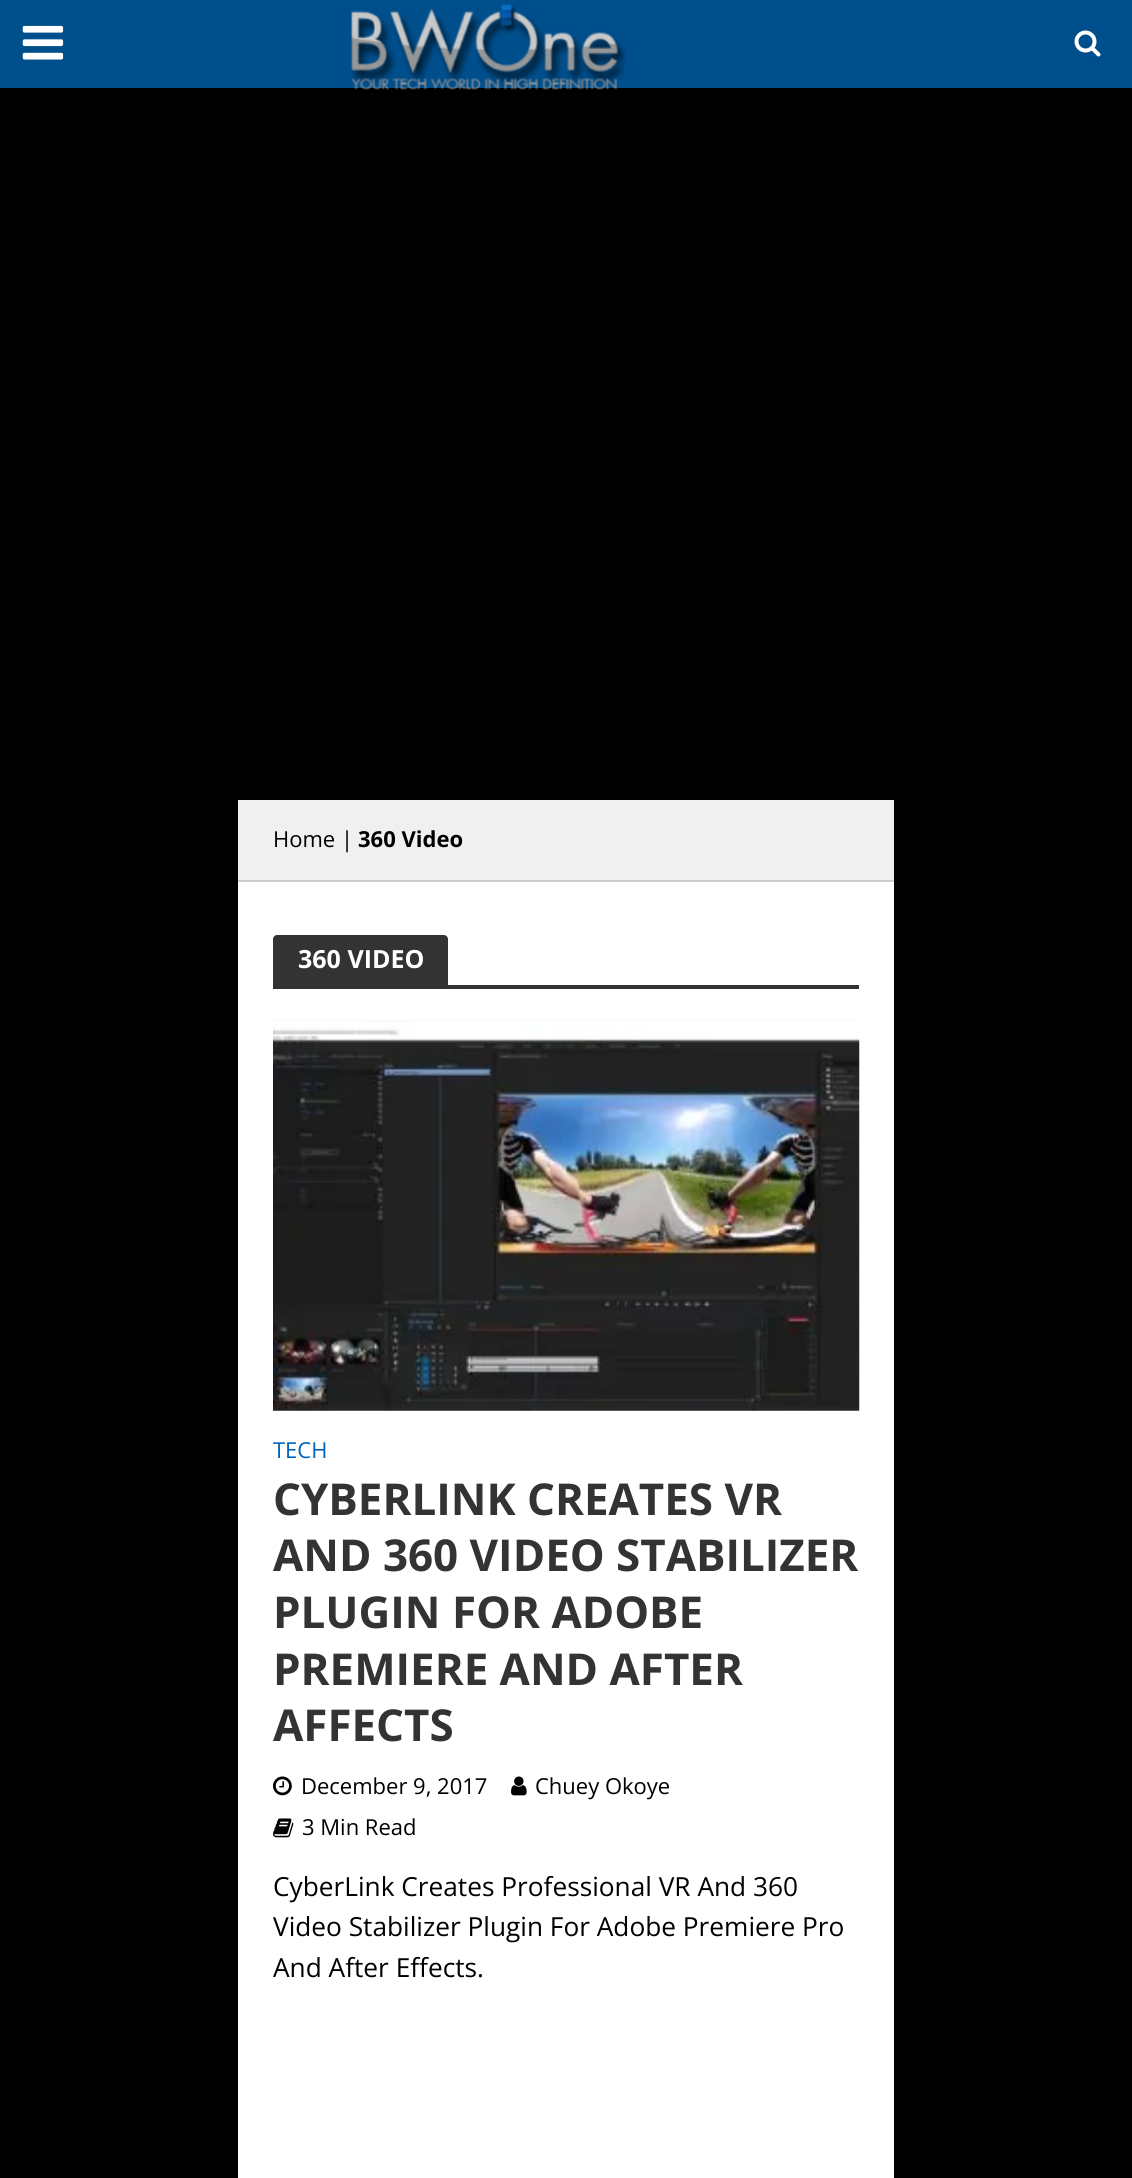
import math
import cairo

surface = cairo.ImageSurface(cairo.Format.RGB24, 1132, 2178)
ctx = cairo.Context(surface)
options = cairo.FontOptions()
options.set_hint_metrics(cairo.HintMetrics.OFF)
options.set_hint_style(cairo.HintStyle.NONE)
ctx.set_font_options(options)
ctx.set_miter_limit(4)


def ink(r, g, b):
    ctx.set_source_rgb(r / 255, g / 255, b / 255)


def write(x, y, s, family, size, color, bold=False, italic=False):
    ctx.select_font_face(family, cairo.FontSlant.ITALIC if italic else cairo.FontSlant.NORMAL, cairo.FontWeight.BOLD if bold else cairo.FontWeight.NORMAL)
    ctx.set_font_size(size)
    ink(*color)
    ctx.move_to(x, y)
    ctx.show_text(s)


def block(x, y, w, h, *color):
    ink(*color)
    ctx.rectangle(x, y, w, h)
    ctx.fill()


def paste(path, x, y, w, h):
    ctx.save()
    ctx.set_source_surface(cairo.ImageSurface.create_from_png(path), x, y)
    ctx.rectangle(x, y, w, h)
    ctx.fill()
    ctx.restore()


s1 = dict(family="Open Sans", size=22, color=(0, 0, 0))
s2 = dict(family="Open Sans", size=22, color=(0, 0, 0), bold=True)
s3 = dict(family="Open Sans", size=25, color=(255, 255, 255), bold=True)
s4 = dict(family="Open Sans", size=22, color=(0, 98, 191))
s5 = dict(family="Open Sans", size=43.9, color=(51, 51, 51), bold=True)
s6 = dict(family="Open Sans", size=26.25, color=(0, 0, 0))

ink(0, 0, 0)
ctx.paint()
block(0, 0, 1132, 88, 0, 79, 141)
paste("pic1.png", 22, 25, 42, 35)
paste("pic2.png", 350, 4, 277, 86)
paste("pic3.png", 1074, 30, 27, 27)
block(238, 882, 656, 1296, 255, 255, 255)
block(238, 800, 656, 80, 240, 240, 240)
block(238, 880, 656, 2, 204, 204, 204)
write(273, 847, "Home |", **s1)
write(358, 847, "360 Video", **s2)
ink(51, 51, 51)
ctx.new_path()
ctx.move_to(277, 935)
ctx.line_to(444, 935)
ctx.curve_to(446, 935, 448, 937, 448, 939)
ctx.line_to(448, 985)
ctx.line_to(273, 985)
ctx.line_to(273, 939)
ctx.curve_to(273, 937, 275, 935, 277, 935)
ctx.close_path()
ctx.fill()
write(298, 968, "360 VIDEO", **s3)
block(273, 985, 586, 4, 51, 51, 51)
block(273, 1020, 586, 391, 243, 243, 243)
paste("pic4.png", 273, 1020, 587, 391)
write(273, 1458, "TECH", **s4)
write(273, 1515, "CYBERLINK CREATES VR", **s5)
write(273, 1571, "AND 360 VIDEO STABILIZER", **s5)
write(273, 1628, "PLUGIN FOR ADOBE", **s5)
write(273, 1685, "PREMIERE AND AFTER", **s5)
write(273, 1741, "AFFECTS", **s5)
paste("pic5.png", 273, 1776, 19, 20)
write(301, 1794, "December 9, 2017", **s1)
paste("pic6.png", 511, 1776, 16, 20)
write(535, 1794, "Chuey Okoye", **s1)
paste("pic7.png", 273, 1818, 21, 20)
write(302, 1835, "3 Min Read", **s1)
write(273, 1896, "CyberLink Creates Professional VR And 360", **s6)
write(273, 1936, "Video Stabilizer Plugin For Adobe Premiere Pro", **s6)
write(273, 1977, "And After Effects.", **s6)
surface.write_to_png("screenshot.png")
